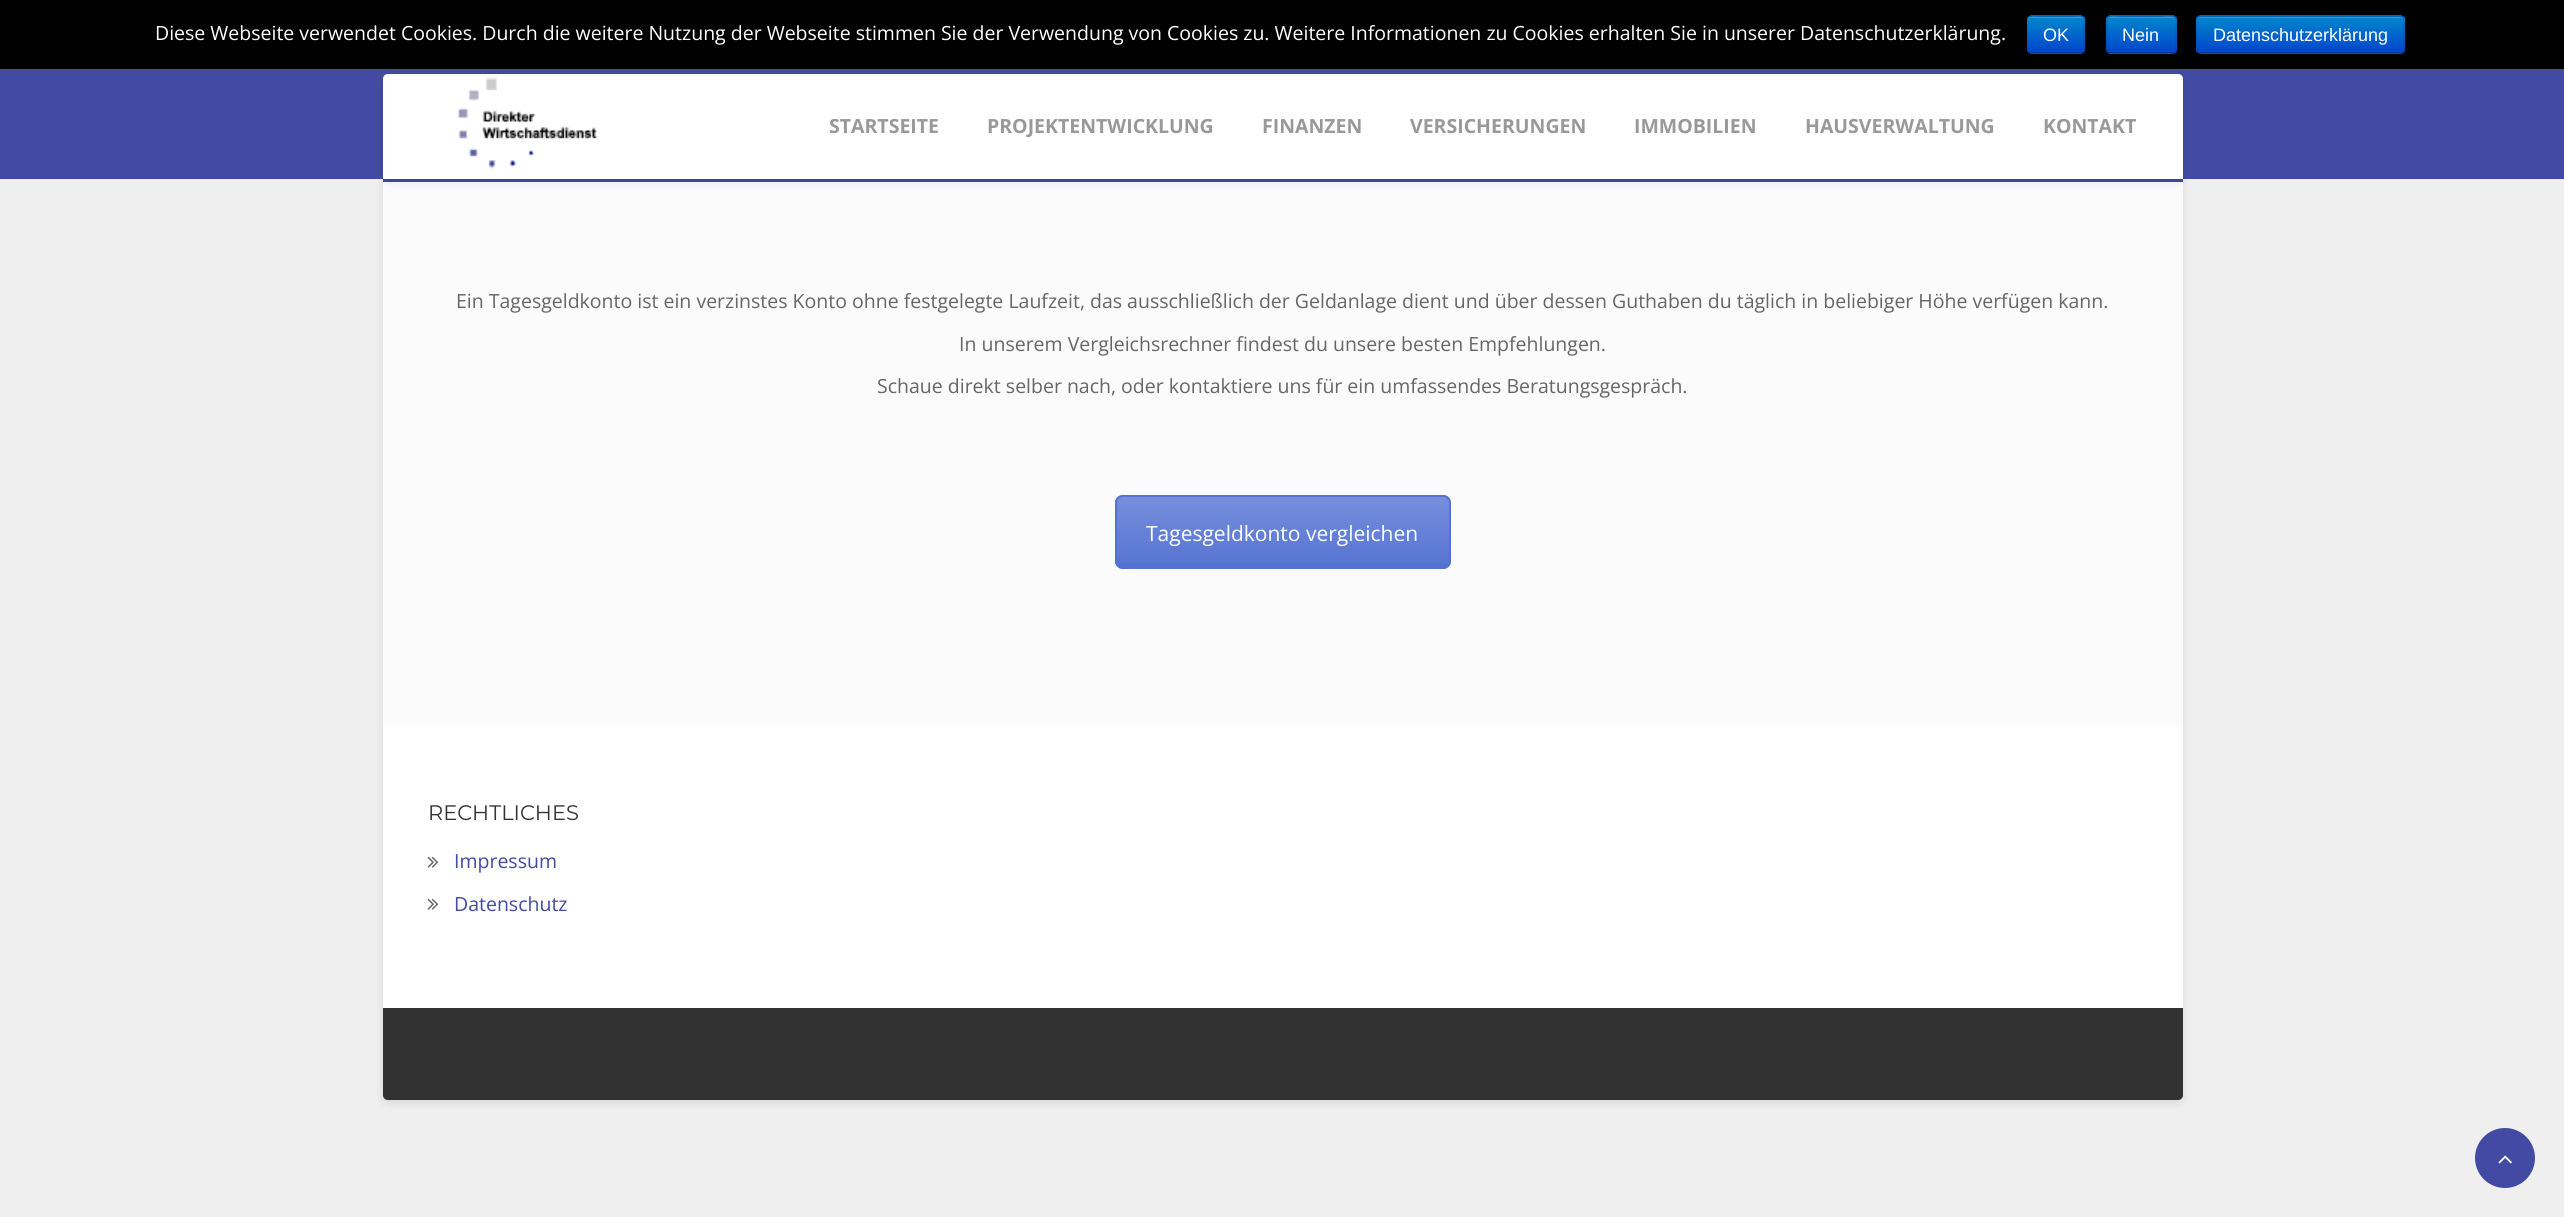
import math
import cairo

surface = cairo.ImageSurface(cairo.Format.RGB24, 2564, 1217)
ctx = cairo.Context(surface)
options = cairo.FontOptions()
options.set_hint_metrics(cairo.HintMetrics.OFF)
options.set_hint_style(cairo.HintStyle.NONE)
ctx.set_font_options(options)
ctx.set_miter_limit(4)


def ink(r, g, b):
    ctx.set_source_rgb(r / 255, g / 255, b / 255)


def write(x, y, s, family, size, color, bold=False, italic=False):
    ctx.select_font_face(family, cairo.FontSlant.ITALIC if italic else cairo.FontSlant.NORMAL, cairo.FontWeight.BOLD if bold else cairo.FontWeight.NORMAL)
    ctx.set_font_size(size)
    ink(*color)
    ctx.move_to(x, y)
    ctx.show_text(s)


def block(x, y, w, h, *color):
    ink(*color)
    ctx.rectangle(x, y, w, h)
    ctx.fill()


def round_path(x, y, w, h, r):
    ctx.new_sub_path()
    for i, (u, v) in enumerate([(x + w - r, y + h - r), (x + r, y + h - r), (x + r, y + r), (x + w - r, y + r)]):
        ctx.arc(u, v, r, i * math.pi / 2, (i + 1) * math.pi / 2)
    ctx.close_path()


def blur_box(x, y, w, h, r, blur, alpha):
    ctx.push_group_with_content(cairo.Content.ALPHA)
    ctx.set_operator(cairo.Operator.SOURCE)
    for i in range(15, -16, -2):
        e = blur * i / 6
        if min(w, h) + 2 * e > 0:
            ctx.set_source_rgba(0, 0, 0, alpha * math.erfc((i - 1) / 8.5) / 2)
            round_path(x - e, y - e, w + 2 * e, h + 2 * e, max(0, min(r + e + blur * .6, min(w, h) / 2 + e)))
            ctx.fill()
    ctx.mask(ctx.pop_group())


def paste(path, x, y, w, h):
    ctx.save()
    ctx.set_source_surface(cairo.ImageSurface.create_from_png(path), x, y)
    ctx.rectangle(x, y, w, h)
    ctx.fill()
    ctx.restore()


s1 = dict(family="Open Sans", size=19.5, color=(255, 255, 255))
s2 = dict(family="Liberation Sans", size=18, color=(255, 255, 255))
s3 = dict(family="Open Sans", size=19.5, color=(153, 153, 153), bold=True)
s4 = dict(family="Open Sans", size=19.5, color=(102, 102, 102))
s5 = dict(family="Open Sans", size=21, color=(255, 255, 255))
s6 = dict(family="Montserrat", size=21, color=(50, 50, 50))
s7 = dict(family="Open Sans", size=19.5, color=(66, 74, 163))

ink(239, 239, 239)
ctx.paint()
ink(0, 0, 0)
blur_box(383, 182, 1800, 921, 5, 4, 0.1)
block(0, 69, 2564, 110, 66, 74, 163)
ink(251, 251, 251)
ctx.new_path()
ctx.move_to(383, 179)
ctx.line_to(2183, 179)
ctx.line_to(2183, 1095)
ctx.curve_to(2183, 1098, 2181, 1100, 2178, 1100)
ctx.line_to(388, 1100)
ctx.curve_to(385, 1100, 383, 1098, 383, 1095)
ctx.close_path()
ctx.fill()
block(383, 179, 1800, 3, 66, 74, 163)
ink(0, 0, 0)
blur_box(383, 77, 1800, 105, 5, 4, 0.1)
block(0, 0, 2564, 69, 0, 0, 0)
write(155, 40, "Diese Webseite verwendet Cookies. Durch die weitere Nutzung der Webseite stimmen Sie der Verwendung von Cookies zu. Weitere Informationen zu Cookies erhalten Sie in unserer Datenschutzerklärung.", **s1)
ink(0, 109, 204)
round_path(2027, 15, 58, 39, 5)
ctx.fill()
ctx.save()
round_path(2027, 15, 58, 39, 5)
ctx.clip()
gradient = cairo.LinearGradient(2056, 16, 2056, 53)
gradient.add_color_stop_rgba(0, 0, 0.533, 0.8, 1)
gradient.add_color_stop_rgba(1, 0, 0.267, 0.8, 1)
ctx.set_source(gradient)
ctx.rectangle(2027, 17, 58, 36)
ctx.fill()
ctx.restore()
ink(51, 157, 214)
ctx.new_path()
ctx.move_to(2031, 18)
ctx.line_to(2080, 18)
ctx.curve_to(2082, 18, 2084, 19, 2084, 21)
ctx.curve_to(2084, 15, 2077, 17, 2073, 17)
ctx.line_to(2039, 17)
ctx.curve_to(2035, 17, 2028, 15, 2028, 21)
ctx.curve_to(2028, 19, 2029, 18, 2031, 18)
ctx.close_path()
ctx.fill()
ctx.new_path()
ctx.move_to(2083, 52)
ctx.curve_to(2082.5, 53, 2081.5, 53, 2080.5, 53)
ctx.line_to(2031, 53)
ctx.curve_to(2030, 53, 2029, 53, 2028.5, 52)
ctx.set_source_rgba(0, 0, 0, 0.25)
ctx.set_line_width(1.5)
ctx.stroke()
ctx.new_path()
ctx.move_to(2028.5, 52)
ctx.curve_to(2027.5, 51.5, 2027, 50.5, 2027, 49.5)
ctx.line_to(2027, 19.5)
ctx.curve_to(2027, 18.5, 2027.5, 17.5, 2028.5, 17)
ctx.curve_to(2029, 16, 2030, 16, 2031, 16)
ctx.line_to(2080.5, 16)
ctx.curve_to(2081.5, 16, 2082.5, 16, 2083, 17)
ctx.curve_to(2084, 17.5, 2084, 18.5, 2084, 19.5)
ctx.line_to(2084, 49.5)
ctx.curve_to(2084, 50.5, 2084, 51.5, 2083, 52)
ctx.set_source_rgba(0, 0, 0, 0.1)
ctx.stroke()
write(2043, 41, "OK", **s2)
ink(0, 109, 204)
round_path(2106, 15, 71, 39, 5)
ctx.fill()
ctx.save()
round_path(2106, 15, 71, 39, 5)
ctx.clip()
gradient = cairo.LinearGradient(2141, 16, 2141, 53)
gradient.add_color_stop_rgba(0, 0, 0.533, 0.8, 1)
gradient.add_color_stop_rgba(1, 0, 0.267, 0.8, 1)
ctx.set_source(gradient)
ctx.rectangle(2106, 17, 71, 36)
ctx.fill()
ctx.restore()
ctx.set_source_rgba(1, 1, 1, 0.2)
ctx.new_path()
ctx.move_to(2110, 18)
ctx.line_to(2172, 18)
ctx.curve_to(2174, 18, 2175, 19, 2175, 21)
ctx.curve_to(2175, 14, 2166, 17, 2162, 17)
ctx.line_to(2121, 17)
ctx.curve_to(2117, 17, 2108, 14, 2108, 21)
ctx.curve_to(2108, 19, 2109, 18, 2110, 18)
ctx.close_path()
ctx.fill()
ctx.new_path()
ctx.move_to(2174.5, 52)
ctx.line_to(2172.5, 53)
ctx.line_to(2110, 53)
ctx.line_to(2108, 52)
ctx.set_source_rgba(0, 0, 0, 0.25)
ctx.stroke()
ctx.new_path()
ctx.move_to(2108, 52)
ctx.curve_to(2106, 50.5, 2107, 46.5, 2107, 44.5)
ctx.line_to(2107, 34.5)
ctx.curve_to(2107, 15, 2102.5, 16, 2121, 16)
ctx.line_to(2162, 16)
ctx.curve_to(2180, 16, 2176, 15, 2176, 34.5)
ctx.line_to(2176, 44.5)
ctx.curve_to(2176, 46.5, 2176.5, 50.5, 2174.5, 52)
ctx.set_source_rgba(0, 0, 0, 0.1)
ctx.stroke()
write(2122, 41, "Nein", **s2)
ink(0, 109, 204)
round_path(2196, 15, 209, 39, 5)
ctx.fill()
ctx.save()
round_path(2196, 15, 209, 39, 5)
ctx.clip()
gradient = cairo.LinearGradient(2300, 16, 2300, 53)
gradient.add_color_stop_rgba(0, 0, 0.533, 0.8, 1)
gradient.add_color_stop_rgba(1, 0, 0.267, 0.8, 1)
ctx.set_source(gradient)
ctx.rectangle(2196, 17, 209, 36)
ctx.fill()
ctx.restore()
ink(51, 157, 214)
ctx.new_path()
ctx.move_to(2200, 18)
ctx.line_to(2400, 18)
ctx.curve_to(2402, 18, 2403, 19, 2403, 21)
ctx.curve_to(2403, 19, 2402, 17, 2400, 17)
ctx.line_to(2201, 17)
ctx.curve_to(2199, 17, 2198, 19, 2198, 21)
ctx.curve_to(2198, 19, 2199, 18, 2200, 18)
ctx.close_path()
ctx.fill()
ctx.new_path()
ctx.move_to(2402.5, 52)
ctx.curve_to(2402, 53, 2401, 53, 2400, 53)
ctx.line_to(2200.5, 53)
ctx.curve_to(2199.5, 53, 2198.5, 53, 2198, 52)
ctx.set_source_rgba(0, 0, 0, 0.25)
ctx.stroke()
ctx.new_path()
ctx.move_to(2198, 52)
ctx.curve_to(2197, 51.5, 2197, 50.5, 2197, 49.5)
ctx.line_to(2197, 19.5)
ctx.curve_to(2197, 18.5, 2197, 17.5, 2198, 17)
ctx.curve_to(2198.5, 16, 2199.5, 16, 2200.5, 16)
ctx.line_to(2400, 16)
ctx.curve_to(2401, 16, 2402, 16, 2402.5, 17)
ctx.curve_to(2403.5, 17.5, 2404, 18.5, 2404, 19.5)
ctx.line_to(2404, 49.5)
ctx.curve_to(2404, 50.5, 2403.5, 51.5, 2402.5, 52)
ctx.set_source_rgba(0, 0, 0, 0.1)
ctx.stroke()
write(2213, 41, "Datenschutzerklärung", **s2)
ctx.new_path()
ctx.move_to(388, 74)
ctx.line_to(2178, 74)
ctx.curve_to(2181, 74, 2183, 76, 2183, 79)
ctx.line_to(2183, 179)
ctx.line_to(383, 179)
ctx.line_to(383, 79)
ctx.curve_to(383, 76, 385, 74, 388, 74)
ctx.close_path()
ctx.fill()
paste("pic1.png", 457, 76, 141, 93)
write(829, 133, "STARTSEITE", **s3)
write(987, 133, "PROJEKTENTWICKLUNG", **s3)
write(1262, 133, "FINANZEN", **s3)
write(1410, 133, "VERSICHERUNGEN", **s3)
write(1634, 133, "IMMOBILIEN", **s3)
write(1805, 133, "HAUSVERWALTUNG", **s3)
write(2043, 133, "KONTAKT", **s3)
write(456, 308, "Ein Tagesgeldkonto ist ein verzinstes Konto ohne festgelegte Laufzeit, das ausschließlich der Geldanlage dient und über dessen Guthaben du täglich in beliebiger Höhe verfügen kann.", **s4)
write(959, 351, "In unserem Vergleichsrechner findest du unsere besten Empfehlungen.", **s4)
write(877, 393, "Schaue direkt selber nach, oder kontaktiere uns für ein umfassendes Beratungsgespräch.", **s4)
ink(84, 114, 210)
round_path(1115, 495, 336, 74, 8)
ctx.fill()
ctx.save()
round_path(1115, 495, 336, 74, 8)
ctx.clip()
gradient = cairo.LinearGradient(1283, 497, 1283, 567)
gradient.add_color_stop_rgba(0, 1, 1, 1, 0.2)
gradient.add_color_stop_rgba(1, 1, 1, 1, 0.01)
ctx.set_source(gradient)
ctx.rectangle(1115, 497, 336, 66)
ctx.fill()
ctx.restore()
round_path(1116, 496, 334, 72, 7)
ctx.set_line_width(2)
ctx.stroke()
write(1146, 541, "Tagesgeldkonto vergleichen", **s5)
block(383, 726, 1800, 282, 255, 255, 255)
write(428, 820, "RECHTLICHES", **s6)
paste("pic2.png", 427, 856, 12, 12)
write(454, 868, "Impressum", **s7)
paste("pic2.png", 427, 898, 12, 12)
write(454, 911, "Datenschutz", **s7)
ink(50, 50, 50)
ctx.new_path()
ctx.move_to(383, 1008)
ctx.line_to(2183, 1008)
ctx.line_to(2183, 1095)
ctx.curve_to(2183, 1098, 2181, 1100, 2178, 1100)
ctx.line_to(388, 1100)
ctx.curve_to(385, 1100, 383, 1098, 383, 1095)
ctx.close_path()
ctx.fill()
ink(66, 74, 163)
ctx.arc(2505, 1158, 30, 0, 2 * math.pi)
ctx.fill()
paste("pic3.png", 2498, 1155, 14, 9)
surface.write_to_png("screenshot.png")
